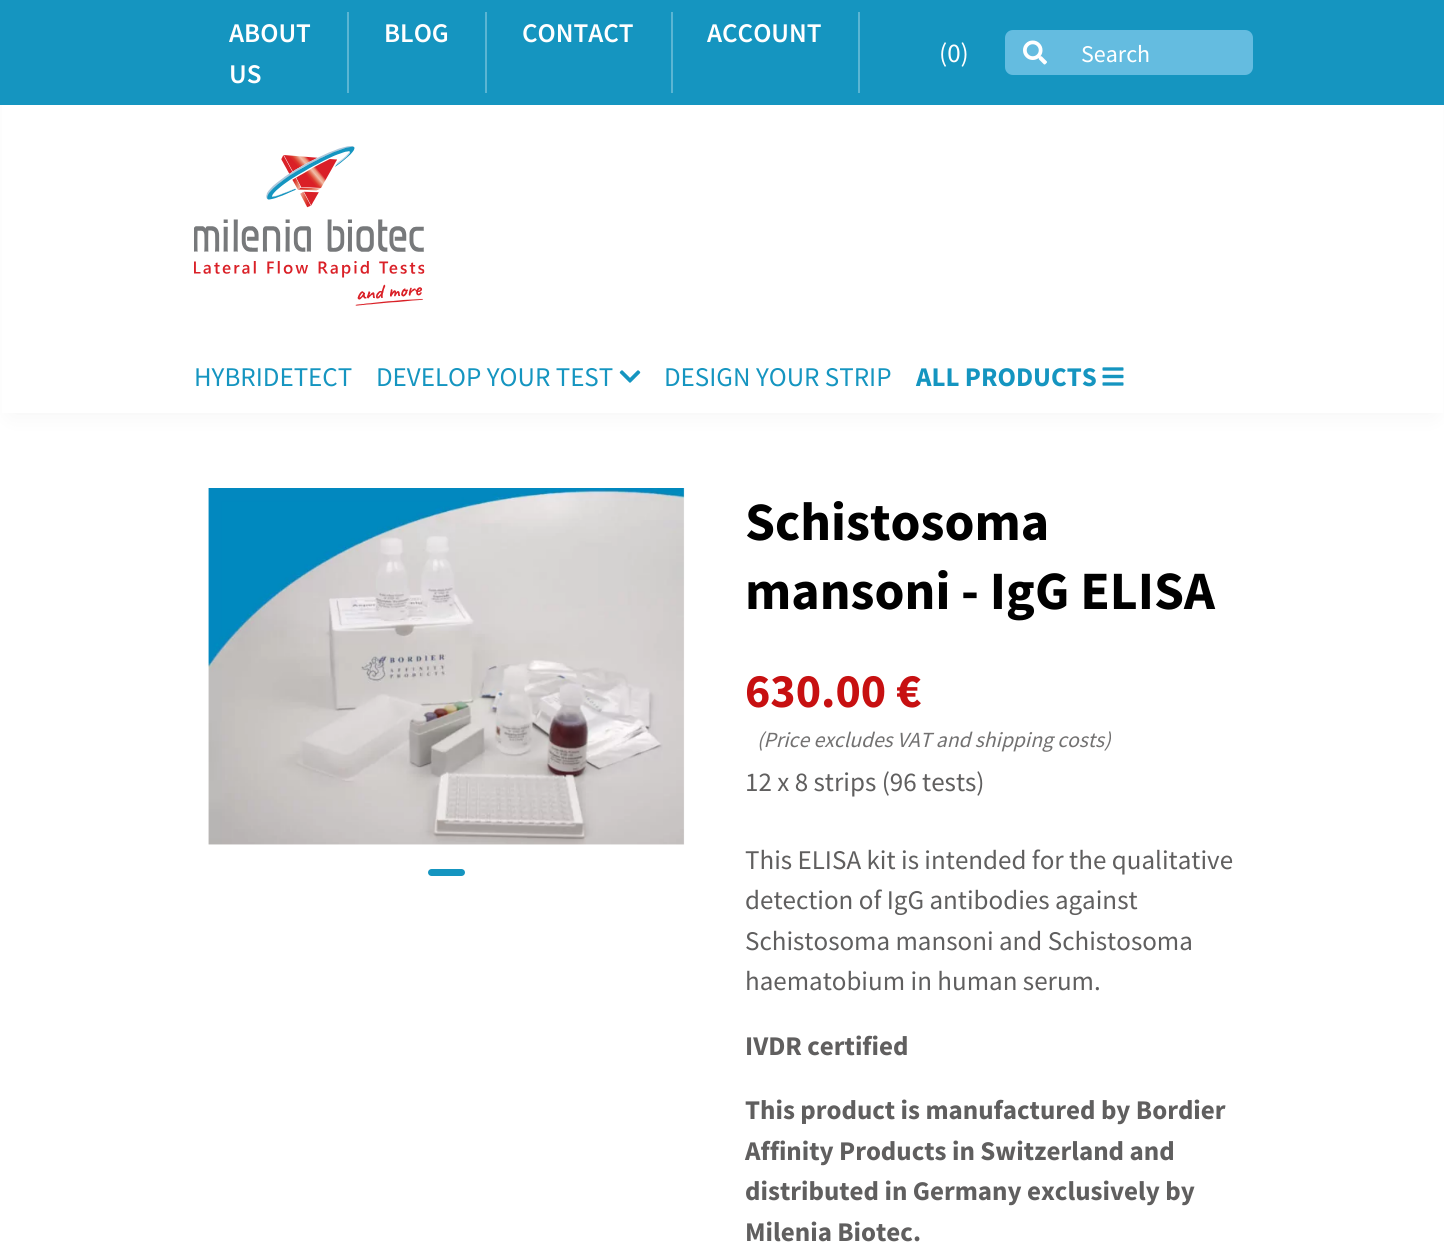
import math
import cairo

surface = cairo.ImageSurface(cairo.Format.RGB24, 1444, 1243)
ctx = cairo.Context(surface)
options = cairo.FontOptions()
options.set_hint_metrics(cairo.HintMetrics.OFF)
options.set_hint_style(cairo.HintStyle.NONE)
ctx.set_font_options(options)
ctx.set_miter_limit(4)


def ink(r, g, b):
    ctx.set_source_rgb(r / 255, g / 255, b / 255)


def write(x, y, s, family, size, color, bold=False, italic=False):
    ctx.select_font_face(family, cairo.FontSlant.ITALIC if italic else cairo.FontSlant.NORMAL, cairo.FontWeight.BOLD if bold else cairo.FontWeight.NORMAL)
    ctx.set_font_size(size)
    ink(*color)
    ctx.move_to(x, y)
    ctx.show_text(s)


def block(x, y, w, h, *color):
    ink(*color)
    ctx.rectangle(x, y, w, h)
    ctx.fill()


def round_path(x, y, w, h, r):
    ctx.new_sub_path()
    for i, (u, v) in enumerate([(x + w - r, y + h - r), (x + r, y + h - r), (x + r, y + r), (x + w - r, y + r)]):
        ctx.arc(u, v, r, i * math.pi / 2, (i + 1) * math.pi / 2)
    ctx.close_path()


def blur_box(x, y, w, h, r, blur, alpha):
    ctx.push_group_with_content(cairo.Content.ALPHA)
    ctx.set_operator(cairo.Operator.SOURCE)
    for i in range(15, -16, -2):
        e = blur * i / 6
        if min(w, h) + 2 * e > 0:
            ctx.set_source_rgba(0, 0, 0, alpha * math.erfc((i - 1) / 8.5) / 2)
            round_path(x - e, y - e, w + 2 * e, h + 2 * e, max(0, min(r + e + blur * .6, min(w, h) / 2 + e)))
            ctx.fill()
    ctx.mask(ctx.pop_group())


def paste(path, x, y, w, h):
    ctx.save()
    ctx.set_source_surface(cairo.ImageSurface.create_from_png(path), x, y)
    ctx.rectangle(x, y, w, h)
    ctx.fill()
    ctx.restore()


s1 = dict(family="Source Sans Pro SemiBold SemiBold", size=27, color=(255, 255, 255))
s2 = dict(family="Source Sans Pro", size=27, color=(255, 255, 255))
s3 = dict(family="Source Sans Pro", size=24, color=(255, 255, 255))
s4 = dict(family="Source Sans Pro", size=27, color=(21, 149, 192))
s5 = dict(family="Source Sans Pro", size=27, color=(21, 149, 192), bold=True)
s6 = dict(family="Source Sans Pro", size=54, color=(0, 0, 0), bold=True)
s7 = dict(family="Source Sans Pro", size=48, color=(199, 16, 17), bold=True)
s8 = dict(family="Source Sans Pro", size=21.6, color=(114, 113, 113), italic=True)
s9 = dict(family="Source Sans Pro", size=27, color=(96, 95, 95))
s10 = dict(family="Source Sans Pro", size=27, color=(96, 95, 95), bold=True)

ink(255, 255, 255)
ctx.paint()
ink(0, 0, 0)
blur_box(12, 24, 1421, 389, 0, 12, 0.05)
block(2, 105, 1441, 308, 255, 255, 255)
block(0, 0, 1444, 105, 21, 149, 192)
block(347, 12, 2, 81, 91, 181, 211)
write(229, 42, "ABOUT", **s1)
write(229, 83, "US", **s1)
block(485, 12, 2, 81, 91, 181, 211)
write(384, 42, "BLOG", **s1)
block(671, 12, 2, 81, 91, 181, 211)
write(522, 42, "CONTACT", **s1)
block(858, 12, 2, 81, 91, 181, 211)
write(707, 42, "ACCOUNT", **s1)
write(939, 62, "(0)", **s2)
ink(100, 188, 224)
ctx.new_path()
ctx.move_to(1013, 30)
ctx.line_to(1065, 30)
ctx.line_to(1065, 75)
ctx.line_to(1013, 75)
ctx.curve_to(1008.5, 75, 1005, 71.5, 1005, 67)
ctx.line_to(1005, 38)
ctx.curve_to(1005, 33.5, 1008.5, 30, 1013, 30)
ctx.close_path()
ctx.fill()
paste("pic1.png", 1023, 40, 24, 25)
ctx.new_path()
ctx.move_to(1064, 30)
ctx.line_to(1245, 30)
ctx.curve_to(1249.5, 30, 1253, 33.5, 1253, 38)
ctx.line_to(1253, 67)
ctx.curve_to(1253, 71.5, 1249.5, 75, 1245, 75)
ctx.line_to(1064, 75)
ctx.close_path()
ctx.fill()
write(1081, 62, "Search", **s3)
paste("pic2.png", 194, 146, 231, 160)
write(194, 386, "HYBRIDETECT", **s4)
write(376, 386, "DEVELOP YOUR TEST", **s4)
paste("pic3.png", 619, 370, 22, 13)
write(664, 386, "DESIGN YOUR STRIP", **s4)
write(916, 386, "ALL PRODUCTS", **s5)
paste("pic4.png", 1102, 367, 22, 19)
paste("pic5.png", 208, 488, 477, 357)
round_path(428, 869, 37, 7, 3.5)
ctx.fill()
write(745, 540, "Schistosoma", **s6)
write(745, 609, "mansoni - IgG ELISA", **s6)
write(745, 707, "630.00", **s7)
write(896, 707, "€", **s7)
write(757, 747, "(Price excludes VAT and shipping costs)", **s8)
write(745, 791, "12 x 8 strips (96 tests)", **s9)
write(745, 869, "This ELISA kit is intended for the qualitative", **s9)
write(745, 909, "detection of IgG antibodies against", **s9)
write(745, 950, "Schistosoma mansoni and Schistosoma", **s9)
write(745, 990, "haematobium in human serum.", **s9)
write(745, 1055, "IVDR certified", **s10)
write(745, 1119, "This product is manufactured by Bordier", **s10)
write(745, 1160, "Affinity Products in Switzerland and", **s10)
write(745, 1200, "distributed in Germany exclusively by", **s10)
write(745, 1241, "Milenia Biotec.", **s10)
surface.write_to_png("screenshot.png")
